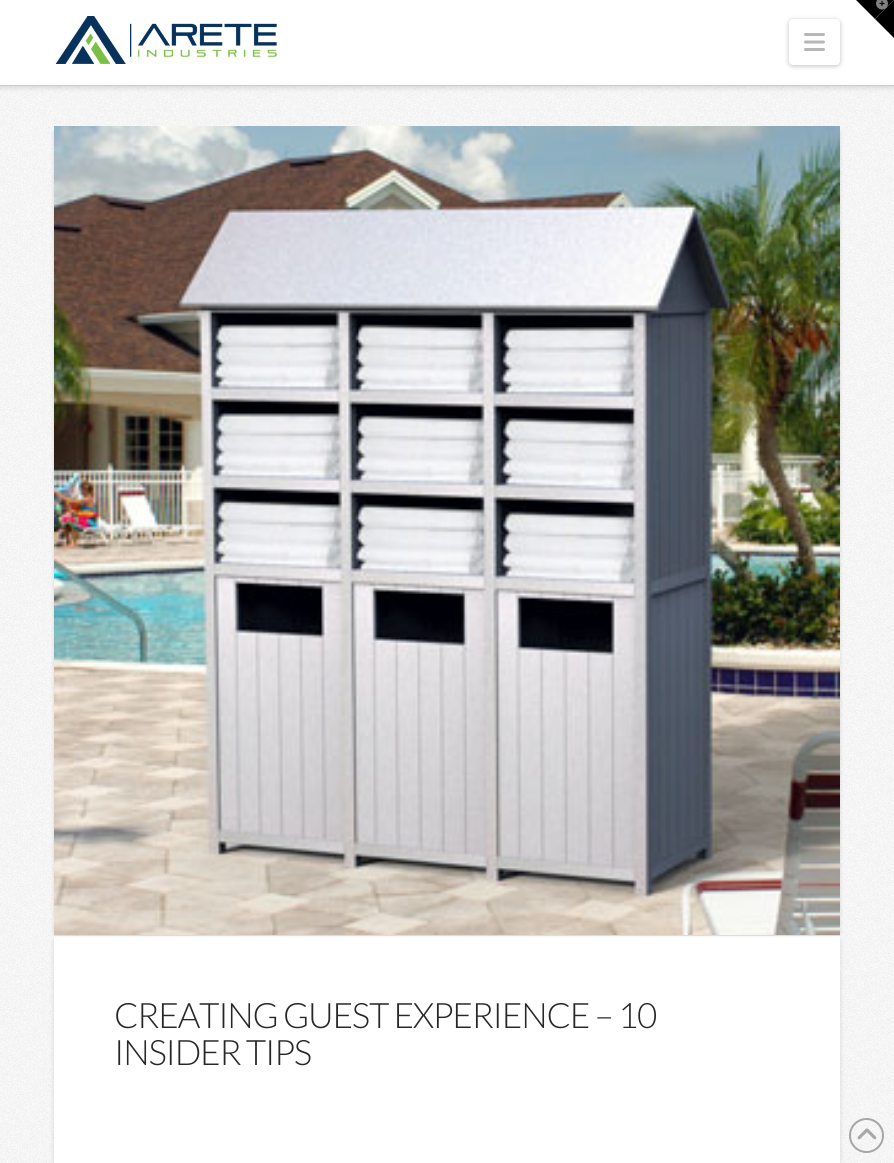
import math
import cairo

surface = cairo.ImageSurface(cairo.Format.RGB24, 894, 1163)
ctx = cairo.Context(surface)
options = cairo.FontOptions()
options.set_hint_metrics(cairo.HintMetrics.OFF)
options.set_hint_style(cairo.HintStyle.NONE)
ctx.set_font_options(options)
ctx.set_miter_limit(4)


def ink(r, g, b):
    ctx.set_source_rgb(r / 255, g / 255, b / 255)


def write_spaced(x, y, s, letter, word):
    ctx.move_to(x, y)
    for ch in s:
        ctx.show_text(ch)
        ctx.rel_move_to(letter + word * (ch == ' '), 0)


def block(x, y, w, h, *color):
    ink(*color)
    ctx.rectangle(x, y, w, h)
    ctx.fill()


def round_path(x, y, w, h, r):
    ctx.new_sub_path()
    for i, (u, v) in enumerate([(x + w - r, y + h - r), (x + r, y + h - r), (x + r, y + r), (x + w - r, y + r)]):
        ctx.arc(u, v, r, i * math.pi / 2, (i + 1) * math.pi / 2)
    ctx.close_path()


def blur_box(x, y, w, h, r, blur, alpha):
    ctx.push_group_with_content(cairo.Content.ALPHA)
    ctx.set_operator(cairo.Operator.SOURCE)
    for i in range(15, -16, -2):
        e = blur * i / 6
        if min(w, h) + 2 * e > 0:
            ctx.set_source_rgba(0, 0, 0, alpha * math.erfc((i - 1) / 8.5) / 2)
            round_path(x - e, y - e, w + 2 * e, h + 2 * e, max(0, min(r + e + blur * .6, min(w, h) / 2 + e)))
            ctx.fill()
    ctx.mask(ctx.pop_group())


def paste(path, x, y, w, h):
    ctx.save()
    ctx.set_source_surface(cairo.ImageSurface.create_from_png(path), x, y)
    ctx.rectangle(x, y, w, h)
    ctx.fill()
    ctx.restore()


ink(255, 255, 255)
ctx.paint()
paste("pic1.png", 0, 86, 894, 1077)
ink(0, 0, 0)
blur_box(0, 2, 894, 86, 0, 2.5, 0.13)
block(0, 0, 894, 85, 255, 255, 255)
ink(0, 0, 0)
ctx.new_path()
ctx.move_to(856, 0)
ctx.line_to(894, 0)
ctx.line_to(875, 19)
ctx.close_path()
ctx.fill()
ctx.new_path()
ctx.move_to(894, 0)
ctx.line_to(894, 38)
ctx.line_to(875, 19)
ctx.close_path()
ctx.fill()
paste("pic2.png", 876, 0, 12, 10)
block(0, 85, 894, 1, 204, 204, 204)
paste("pic3.png", 55, 16, 222, 48)
ink(0, 0, 0)
blur_box(789, 20, 51, 46, 4, 2.5, 0.25)
ink(255, 255, 255)
round_path(789, 19, 51, 46, 4)
ctx.fill()
paste("pic4.png", 804, 33, 21, 18)
ink(0, 0, 0)
blur_box(54, 938, 786, 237, 4, 2.5, 0.13)
block(54, 936, 786, 227, 255, 255, 255)
ink(0, 0, 0)
blur_box(54, 132, 778, 802, 0, 2, 0.13)
blur_box(62, 132, 778, 802, 0, 2, 0.13)
block(54, 935, 786, 1, 221, 221, 221)
paste("pic5.png", 54, 126, 786, 809)
ctx.select_font_face("Lato Light")
ctx.set_font_size(35)
ink(39, 39, 39)
write_spaced(114, 1028, "CREATING GUEST EXPERIENCE – 10", -1.25, 0)
write_spaced(114, 1065, "INSIDER TIPS", -1.25, 0)
ctx.new_path()
ctx.arc(866.5, 1135.5, 16.5, 0, 2 * math.pi)
ctx.set_source_rgba(0.153, 0.153, 0.153, 0.38)
ctx.stroke()
paste("pic6.png", 857, 1128, 20, 12)
surface.write_to_png("screenshot.png")
